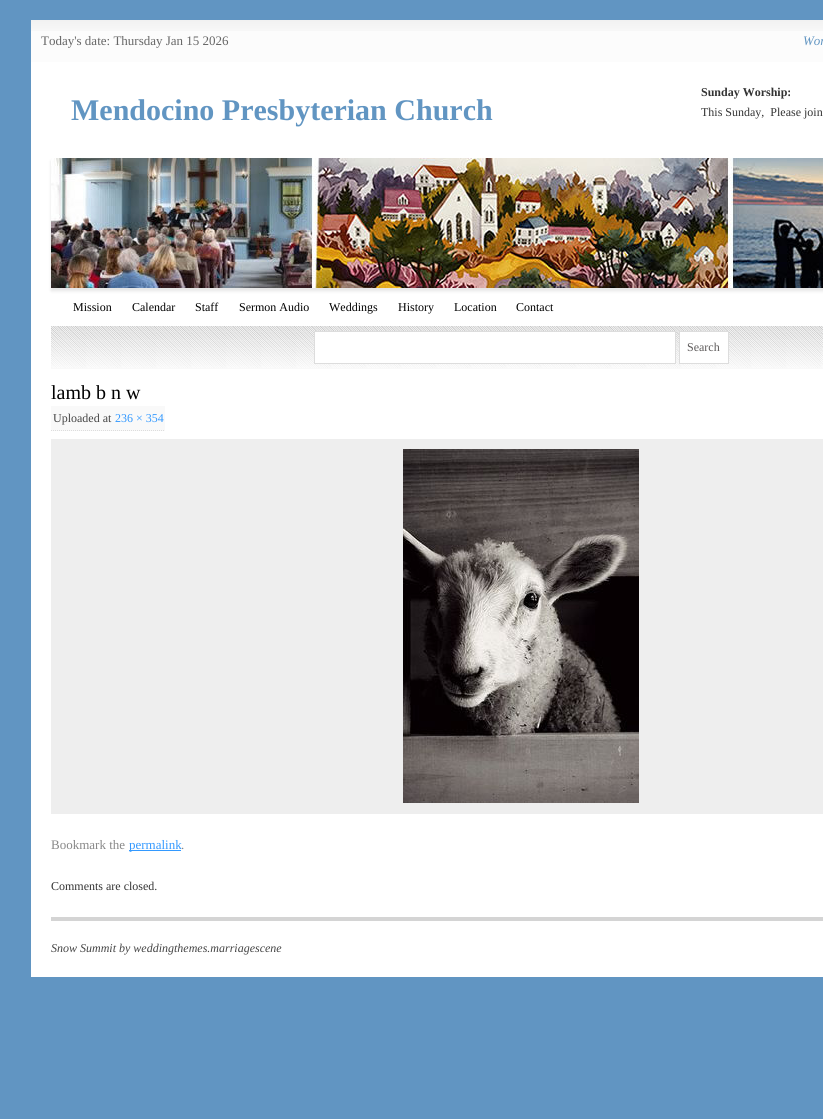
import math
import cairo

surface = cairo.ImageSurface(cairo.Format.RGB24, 823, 1119)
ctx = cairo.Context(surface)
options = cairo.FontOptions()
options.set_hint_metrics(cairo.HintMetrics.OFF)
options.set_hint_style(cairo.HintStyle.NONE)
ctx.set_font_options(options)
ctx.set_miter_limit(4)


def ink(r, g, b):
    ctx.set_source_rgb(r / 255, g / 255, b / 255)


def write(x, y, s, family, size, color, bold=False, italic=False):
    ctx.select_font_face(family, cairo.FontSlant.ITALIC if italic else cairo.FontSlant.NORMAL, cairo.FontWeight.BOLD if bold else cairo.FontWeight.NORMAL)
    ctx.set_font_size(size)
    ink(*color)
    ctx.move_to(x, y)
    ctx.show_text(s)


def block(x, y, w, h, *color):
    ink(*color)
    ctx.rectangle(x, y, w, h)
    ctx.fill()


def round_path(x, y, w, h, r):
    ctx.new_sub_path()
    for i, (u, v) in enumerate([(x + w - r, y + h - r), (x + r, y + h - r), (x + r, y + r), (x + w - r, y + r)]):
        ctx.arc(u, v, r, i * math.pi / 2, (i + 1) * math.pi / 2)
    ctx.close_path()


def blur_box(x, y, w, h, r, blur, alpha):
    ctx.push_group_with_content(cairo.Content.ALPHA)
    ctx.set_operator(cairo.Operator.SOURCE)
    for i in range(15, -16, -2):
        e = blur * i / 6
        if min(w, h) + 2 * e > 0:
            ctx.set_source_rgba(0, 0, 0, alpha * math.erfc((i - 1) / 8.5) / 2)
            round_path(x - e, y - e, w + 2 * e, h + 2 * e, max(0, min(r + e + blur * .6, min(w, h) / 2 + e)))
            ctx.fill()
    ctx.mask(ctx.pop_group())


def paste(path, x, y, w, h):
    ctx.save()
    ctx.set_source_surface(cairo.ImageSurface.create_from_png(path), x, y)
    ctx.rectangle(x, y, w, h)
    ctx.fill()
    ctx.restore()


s1 = dict(family="Liberation Serif", size=13, color=(102, 102, 102))
s2 = dict(family="Liberation Serif", size=13, color=(97, 149, 194), italic=True)
s3 = dict(family="Liberation Serif", size=30, color=(97, 149, 194), bold=True)
s4 = dict(family="Liberation Serif", size=12, color=(51, 51, 51), bold=True)
s5 = dict(family="Liberation Serif", size=12, color=(51, 51, 51))
s6 = dict(family="Liberation Serif", size=12, color=(0, 0, 0))
s7 = dict(family="Liberation Serif", size=12, color=(93, 90, 90))
s8 = dict(family="Liberation Serif", size=20, color=(0, 0, 0))
s9 = dict(family="Liberation Serif", size=12, color=(68, 68, 68))
s10 = dict(family="Liberation Serif", size=12, color=(51, 153, 255))
s11 = dict(family="Liberation Serif", size=13, color=(136, 136, 136))
s12 = dict(family="Liberation Serif", size=13, color=(51, 153, 255))
s13 = dict(family="Liberation Serif", size=12, color=(68, 68, 68), italic=True)

ink(97, 149, 194)
ctx.paint()
block(31, 20, 792, 42, 252, 252, 252)
paste("pic1.png", 31, 20, 792, 11)
write(41, 45, "Today's date: Thursday Jan 15 2026", **s1)
write(803, 45, "Wor", **s2)
block(31, 62, 792, 915, 255, 255, 255)
write(71, 120, "Mendocino Presbyterian Church", **s3)
write(701, 96, "Sunday Worship:", **s4)
write(701, 116, "This Sunday,  Please join", **s5)
ink(0, 0, 0)
blur_box(51, 161, 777, 130, 0, 1.5, 0.1)
paste("pic2.png", 51, 158, 772, 130)
write(73, 311, "Mission", **s6)
write(132, 311, "Calendar", **s6)
write(195, 311, "Staff", **s6)
write(239, 311, "Sermon Audio", **s6)
write(329, 311, "Weddings", **s6)
write(398, 311, "History", **s6)
write(454, 311, "Location", **s6)
write(516, 311, "Contact", **s6)
block(51, 368, 772, 1, 249, 249, 249)
paste("pic3.png", 51, 326, 772, 42)
ink(255, 255, 255)
ctx.rectangle(314.5, 331.5, 361, 32)
ctx.fill_preserve()
ink(221, 221, 221)
ctx.set_line_width(1)
ctx.stroke()
ink(255, 255, 255)
ctx.rectangle(679.5, 331.5, 49, 32)
ctx.fill_preserve()
ink(221, 221, 221)
ctx.stroke()
write(687, 351, "Search", **s7)
write(51, 399, "lamb b n w", **s8)
block(51, 406, 114, 25, 249, 249, 249)
ctx.new_path()
ctx.move_to(51, 430.5)
ctx.line_to(165, 430.5)
ink(221, 221, 221)
ctx.set_dash([1, 1])
ctx.stroke()
write(53, 422, "Uploaded at", **s9)
write(115, 422, "236 × 354", **s10)
block(51, 439, 772, 375, 238, 238, 238)
paste("pic4.png", 403, 449, 236, 354)
write(51, 849, "Bookmark the", **s11)
block(129, 850, 52, 1, 51, 153, 255)
write(129, 849, "permalink", **s12)
write(181, 849, ".", **s11)
write(51, 890, "Comments are closed.", **s5)
block(51, 917, 772, 4, 212, 212, 212)
write(51, 952, "Snow Summit by weddingthemes.marriagescene", **s13)
surface.write_to_png("screenshot.png")
